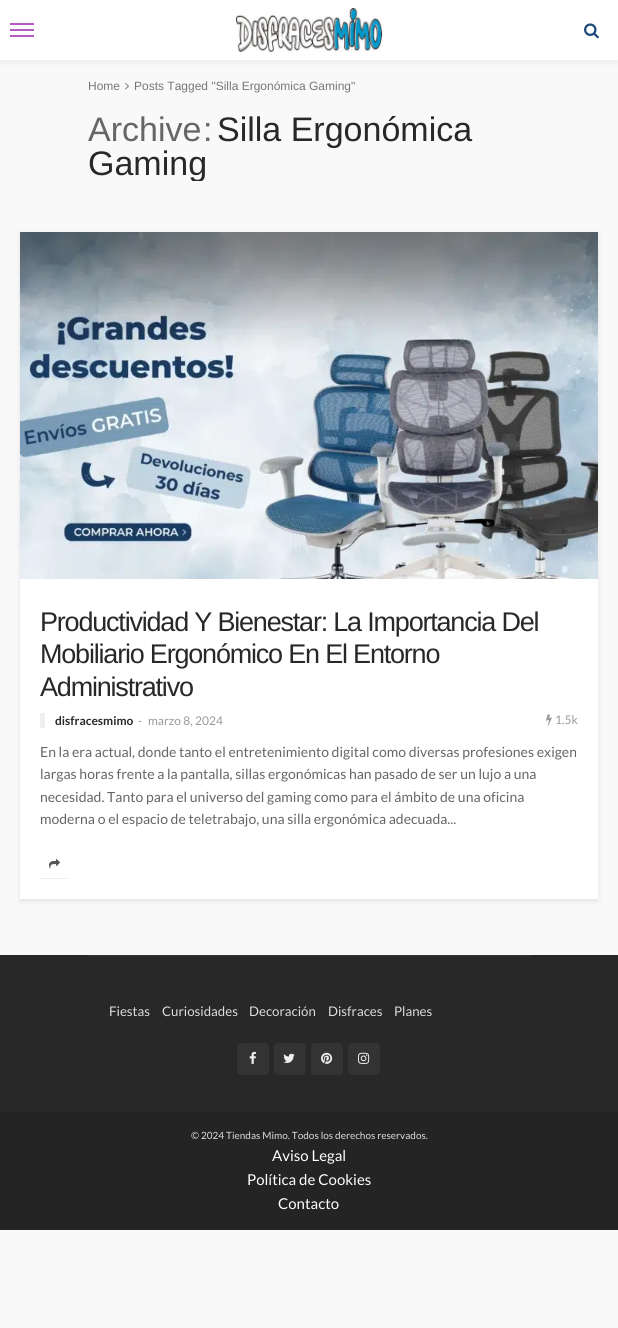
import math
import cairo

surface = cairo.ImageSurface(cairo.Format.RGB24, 618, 1328)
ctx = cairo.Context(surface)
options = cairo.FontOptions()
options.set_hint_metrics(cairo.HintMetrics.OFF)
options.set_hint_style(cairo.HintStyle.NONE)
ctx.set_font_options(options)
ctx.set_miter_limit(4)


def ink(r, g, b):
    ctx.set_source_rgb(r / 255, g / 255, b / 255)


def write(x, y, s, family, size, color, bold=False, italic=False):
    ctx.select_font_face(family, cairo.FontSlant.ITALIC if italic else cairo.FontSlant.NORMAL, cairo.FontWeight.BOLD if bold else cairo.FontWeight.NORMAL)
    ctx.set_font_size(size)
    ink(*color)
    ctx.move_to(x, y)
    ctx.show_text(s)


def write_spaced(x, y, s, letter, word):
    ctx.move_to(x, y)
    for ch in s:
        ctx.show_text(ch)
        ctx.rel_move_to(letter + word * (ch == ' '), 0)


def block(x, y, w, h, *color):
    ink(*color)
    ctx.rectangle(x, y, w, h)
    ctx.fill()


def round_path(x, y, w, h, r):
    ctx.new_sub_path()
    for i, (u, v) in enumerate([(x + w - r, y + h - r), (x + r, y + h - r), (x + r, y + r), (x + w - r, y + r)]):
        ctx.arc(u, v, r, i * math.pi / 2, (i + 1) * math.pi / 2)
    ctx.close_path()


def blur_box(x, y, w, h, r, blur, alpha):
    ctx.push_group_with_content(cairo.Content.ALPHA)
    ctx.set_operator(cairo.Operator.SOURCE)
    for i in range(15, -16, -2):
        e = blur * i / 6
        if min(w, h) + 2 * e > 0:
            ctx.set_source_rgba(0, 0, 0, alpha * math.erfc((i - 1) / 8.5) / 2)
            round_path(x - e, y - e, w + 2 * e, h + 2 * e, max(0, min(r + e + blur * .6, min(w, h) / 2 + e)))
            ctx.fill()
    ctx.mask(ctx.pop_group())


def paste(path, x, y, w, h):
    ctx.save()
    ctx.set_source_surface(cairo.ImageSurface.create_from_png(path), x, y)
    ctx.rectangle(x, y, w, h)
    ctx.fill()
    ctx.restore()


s1 = dict(family="Liberation Sans", size=12, color=(119, 119, 119))
s2 = dict(family="Liberation Sans", size=34, color=(102, 102, 102))
s3 = dict(family="Liberation Sans", size=34, color=(40, 40, 40))
s4 = dict(family="Lato", size=12, color=(40, 40, 40), bold=True)
s5 = dict(family="Lato", size=12, color=(153, 153, 153))
s6 = dict(family="Lato", size=14, color=(102, 102, 102))
s7 = dict(family="Lato", size=13.25, color=(221, 221, 221))
s8 = dict(family="Lato", size=10, color=(221, 221, 221))
s9 = dict(family="Lato", size=15, color=(255, 255, 255))

ink(249, 249, 249)
ctx.paint()
ink(28, 28, 28)
blur_box(0, 4, 618, 60, 0, 3, 0.05)
block(0, 0, 618, 60, 255, 255, 255)
block(10, 29, 24, 2, 179, 91, 191)
block(10, 23, 24, 2, 179, 91, 191)
block(10, 35, 24, 2, 179, 91, 191)
paste("pic1.png", 236, 8, 147, 44)
paste("pic2.png", 584, 23, 15, 16)
write(88, 90, "Home", **s1)
paste("pic3.png", 125, 82, 4, 8)
write(134, 90, "Posts Tagged \"Silla Ergonómica Gaming\"", **s1)
write(88, 141, "Archive", **s2)
write(203, 141, ":", **s2)
write(217, 141, "Silla Ergonómica", **s3)
ctx.save()
ctx.rectangle(0, 112, 618, 69)
ctx.clip()
write(88, 175, "Gaming", **s3)
ctx.restore()
ink(0, 0, 0)
blur_box(20, 234, 578, 667, 0, 2.5, 0.1)
block(20, 579, 578, 320, 255, 255, 255)
paste("pic4.png", 20, 232, 578, 347)
ctx.set_font_size(27)
ink(40, 40, 40)
write_spaced(40, 631, "Productividad Y Bienestar: La Importancia Del", -1.2, 0)
write_spaced(40, 663, "Mobiliario Ergonómico En El Entorno", -1.2, 0)
write_spaced(40, 696, "Administrativo", -1.2, 0)
block(40, 713, 5, 15, 239, 239, 239)
write(55, 725, "disfracesmimo", **s4)
write(138, 725, "-", **s5)
write(148, 725, "marzo 8, 2024", **s5)
paste("pic5.png", 546, 714, 6, 12)
write(555, 724, "1.5k", **s5)
write(40, 757, "En la era actual, donde tanto el entretenimiento digital como diversas profesiones exigen", **s6)
write(40, 779, "largas horas frente a la pantalla, sillas ergonómicas han pasado de ser un lujo a una", **s6)
write(40, 802, "necesidad. Tanto para el universo del gaming como para el ámbito de una oficina", **s6)
write(40, 824, "moderna o el espacio de teletrabajo, una silla ergonómica adecuada...", **s6)
block(40, 878, 28, 1, 239, 239, 239)
paste("pic6.png", 49, 859, 11, 10)
block(0, 955, 618, 157, 40, 40, 40)
block(88, 955, 442, 1, 55, 55, 55)
write(109, 1016, "Fiestas", **s7)
write(162, 1016, "Curiosidades", **s7)
write(249, 1016, "Decoración", **s7)
write(328, 1016, "Disfraces", **s7)
write(394, 1016, "Planes", **s7)
ink(51, 51, 51)
round_path(237, 1043, 32, 32, 4)
ctx.fill()
paste("pic7.png", 249, 1051, 7, 13)
round_path(274, 1043, 32, 32, 4)
ctx.fill()
paste("pic8.png", 283, 1053, 12, 10)
round_path(311, 1043, 32, 32, 4)
ctx.fill()
paste("pic9.png", 321, 1052, 12, 12)
round_path(348, 1043, 32, 32, 4)
ctx.fill()
paste("pic10.png", 358, 1052, 12, 12)
block(0, 1112, 618, 118, 36, 36, 36)
write(191, 1139, "© 2024 Tiendas Mimo. Todos los derechos reservados.", **s8)
write(272, 1161, "Aviso Legal", **s9)
write(247, 1185, "Política de Cookies", **s9)
write(278, 1209, "Contacto", **s9)
surface.write_to_png("screenshot.png")
